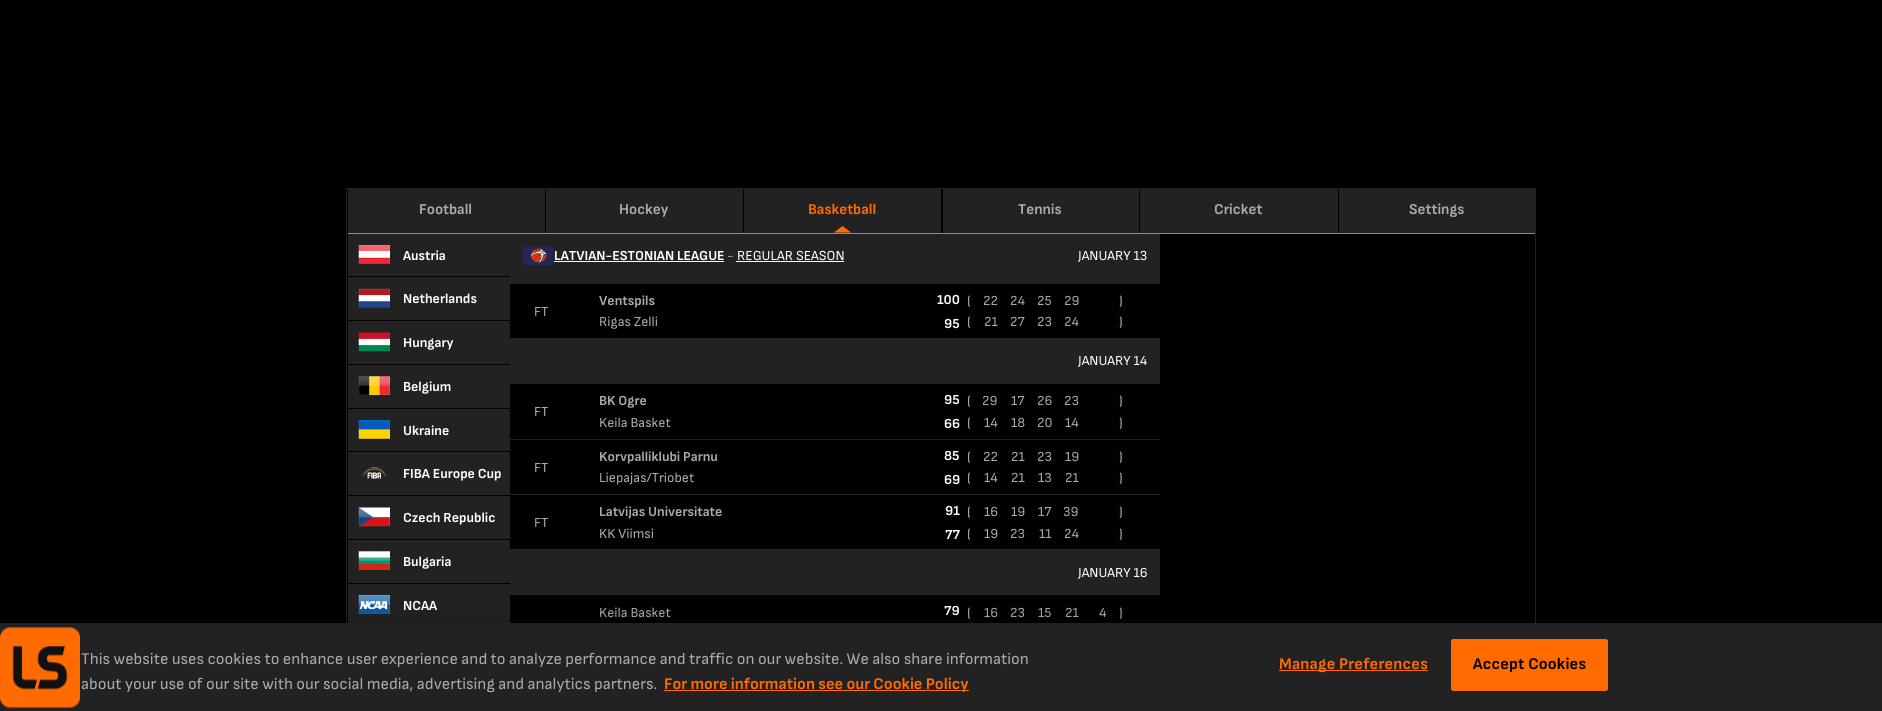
import math
import cairo

surface = cairo.ImageSurface(cairo.Format.RGB24, 1882, 711)
ctx = cairo.Context(surface)
options = cairo.FontOptions()
options.set_hint_metrics(cairo.HintMetrics.OFF)
options.set_hint_style(cairo.HintStyle.NONE)
ctx.set_font_options(options)
ctx.set_miter_limit(4)


def ink(r, g, b):
    ctx.set_source_rgb(r / 255, g / 255, b / 255)


def write(x, y, s, family, size, color, bold=False, italic=False):
    ctx.select_font_face(family, cairo.FontSlant.ITALIC if italic else cairo.FontSlant.NORMAL, cairo.FontWeight.BOLD if bold else cairo.FontWeight.NORMAL)
    ctx.set_font_size(size)
    ink(*color)
    ctx.move_to(x, y)
    ctx.show_text(s)


def write_spaced(x, y, s, letter, word):
    ctx.move_to(x, y)
    for ch in s:
        ctx.show_text(ch)
        ctx.rel_move_to(letter + word * (ch == ' '), 0)


def block(x, y, w, h, *color):
    ink(*color)
    ctx.rectangle(x, y, w, h)
    ctx.fill()


def round_path(x, y, w, h, r):
    ctx.new_sub_path()
    for i, (u, v) in enumerate([(x + w - r, y + h - r), (x + r, y + h - r), (x + r, y + r), (x + w - r, y + r)]):
        ctx.arc(u, v, r, i * math.pi / 2, (i + 1) * math.pi / 2)
    ctx.close_path()


def blur_box(x, y, w, h, r, blur, alpha):
    ctx.push_group_with_content(cairo.Content.ALPHA)
    ctx.set_operator(cairo.Operator.SOURCE)
    for i in range(15, -16, -2):
        e = blur * i / 6
        if min(w, h) + 2 * e > 0:
            ctx.set_source_rgba(0, 0, 0, alpha * math.erfc((i - 1) / 8.5) / 2)
            round_path(x - e, y - e, w + 2 * e, h + 2 * e, max(0, min(r + e + blur * .6, min(w, h) / 2 + e)))
            ctx.fill()
    ctx.mask(ctx.pop_group())


def paste(path, x, y, w, h):
    ctx.save()
    ctx.set_source_surface(cairo.ImageSurface.create_from_png(path), x, y)
    ctx.rectangle(x, y, w, h)
    ctx.fill()
    ctx.restore()


s1 = dict(family="Sofia Sans", size=15, color=(170, 170, 170), bold=True)
s2 = dict(family="Sofia Sans", size=15, color=(255, 107, 0), bold=True)
s3 = dict(family="Sofia Sans", size=13.75, color=(255, 255, 255), bold=True)
s4 = dict(family="Sofia Sans", size=13.75, color=(170, 170, 170))
s5 = dict(family="Sofia Sans", size=13.75, color=(255, 255, 255))
s6 = dict(family="Sofia Sans", size=13.75, color=(170, 170, 170), bold=True)
s7 = dict(family="Sofia Sans", size=16.25, color=(170, 170, 170))
s8 = dict(family="Sofia Sans", size=16.25, color=(255, 107, 0), bold=True)

ink(0, 0, 0)
ctx.paint()
ctx.rectangle(346.5, 188.5, 1189, 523)
ink(34, 34, 34)
ctx.set_line_width(1)
ctx.stroke()
block(348, 233, 1187, 1, 255, 107, 0)
block(348, 189, 197, 44, 34, 34, 34)
write(419, 214, "Football", **s1)
block(546, 189, 197, 44, 34, 34, 34)
write(619, 214, "Hockey", **s1)
block(744, 189, 197, 44, 34, 34, 34)
write(808, 214, "Basketball", **s2)
ctx.new_path()
ctx.move_to(851, 232.5)
ctx.line_to(834, 232.5)
ctx.line_to(842.5, 226)
ctx.close_path()
ctx.fill()
block(943, 189, 196, 44, 34, 34, 34)
write(1018, 214, "Tennis", **s1)
block(1140, 189, 198, 44, 34, 34, 34)
write(1214, 214, "Cricket", **s1)
block(1339, 189, 196, 44, 34, 34, 34)
write(1409, 214, "Settings", **s1)
block(348, 234, 162, 389, 34, 34, 34)
block(348, 276, 162, 1, 0, 0, 0)
paste("pic1.png", 358, 245, 32, 19)
write(403, 260, "Austria", **s3)
block(348, 320, 162, 1, 0, 0, 0)
paste("pic2.png", 358, 288, 32, 20)
write(403, 303, "Netherlands", **s3)
block(348, 364, 162, 1, 0, 0, 0)
paste("pic3.png", 358, 332, 32, 20)
write(403, 347, "Hungary", **s3)
block(348, 408, 162, 1, 0, 0, 0)
paste("pic4.png", 358, 376, 32, 19)
write(403, 391, "Belgium", **s3)
block(348, 451, 162, 1, 0, 0, 0)
paste("pic5.png", 358, 420, 32, 19)
write(403, 435, "Ukraine", **s3)
block(348, 495, 162, 1, 0, 0, 0)
paste("pic6.png", 362, 466, 25, 13)
write(403, 478, "FIBA Europe Cup", **s3)
block(348, 539, 162, 1, 0, 0, 0)
paste("pic7.png", 358, 507, 32, 20)
write(403, 522, "Czech Republic", **s3)
block(348, 583, 162, 1, 0, 0, 0)
paste("pic8.png", 358, 551, 32, 19)
write(403, 566, "Bulgaria", **s3)
paste("pic9.png", 358, 595, 32, 19)
write(403, 610, "NCAA", **s3)
block(510, 234, 650, 50, 34, 34, 34)
paste("pic10.png", 522, 246, 32, 19)
write(554, 260, "LATVIAN-ESTONIAN LEAGUE", **s3)
block(554, 261, 170, 1, 253, 253, 253)
write(727, 260, "-", **s4)
write(737, 260, "REGULAR SEASON", **s5)
block(736, 261, 108, 1, 253, 253, 253)
write(1078, 260, "JANUARY 13", **s5)
write(534, 316, "FT", **s4)
write(599, 305, "Ventspils", **s6)
write(599, 326, "Rigas Zelli", **s4)
write(937, 304, "100", **s3)
write(944, 328, "95", **s3)
write(967, 305, "(", **s4)
write(983, 305, "22", **s4)
write(1010, 305, "24", **s4)
write(1037, 305, "25", **s4)
write(1064, 305, "29", **s4)
write(1119, 305, ")", **s4)
write(967, 326, "(", **s4)
write(984, 326, "21", **s4)
write(1010, 326, "27", **s4)
write(1037, 326, "23", **s4)
write(1064, 326, "24", **s4)
write(1119, 326, ")", **s4)
block(510, 338, 650, 46, 34, 34, 34)
write(1078, 365, "JANUARY 14", **s5)
block(510, 439, 650, 1, 34, 34, 34)
write(534, 416, "FT", **s4)
write(599, 405, "BK Ogre", **s6)
write(599, 427, "Keila Basket", **s4)
write(944, 404, "95", **s3)
write(944, 428, "66", **s3)
write(967, 405, "(", **s4)
write(982, 405, "29", **s4)
write(1011, 405, "17", **s4)
write(1037, 405, "26", **s4)
write(1064, 405, "23", **s4)
write(1119, 405, ")", **s4)
write(967, 427, "(", **s4)
write(984, 427, "14", **s4)
write(1011, 427, "18", **s4)
write(1037, 427, "20", **s4)
write(1065, 427, "14", **s4)
write(1119, 427, ")", **s4)
block(510, 494, 650, 1, 34, 34, 34)
write(534, 472, "FT", **s4)
write(599, 461, "Korvpalliklubi Parnu", **s6)
write(599, 482, "Liepajas/Triobet", **s4)
write(944, 460, "85", **s3)
write(944, 484, "69", **s3)
write(967, 461, "(", **s4)
write(983, 461, "22", **s4)
write(1011, 461, "21", **s4)
write(1037, 461, "23", **s4)
write(1065, 461, "19", **s4)
write(1119, 461, ")", **s4)
write(967, 482, "(", **s4)
write(984, 482, "14", **s4)
write(1011, 482, "21", **s4)
write(1038, 482, "13", **s4)
write(1065, 482, "21", **s4)
write(1119, 482, ")", **s4)
write(534, 527, "FT", **s4)
write(599, 516, "Latvijas Universitate", **s6)
write(599, 538, "KK Viimsi", **s4)
write(945, 515, "91", **s3)
write(945, 539, "77", **s3)
write(967, 516, "(", **s4)
write(984, 516, "16", **s4)
write(1011, 516, "19", **s4)
write(1038, 516, "17", **s4)
write(1063, 516, "39", **s4)
write(1119, 516, ")", **s4)
write(967, 538, "(", **s4)
write(984, 538, "19", **s4)
write(1010, 538, "23", **s4)
write(1039, 538, "11", **s4)
write(1064, 538, "24", **s4)
write(1119, 538, ")", **s4)
block(510, 549, 650, 46, 34, 34, 34)
write(1078, 577, "JANUARY 16", **s5)
write(599, 617, "Keila Basket", **s4)
write(944, 615, "79", **s3)
write(967, 617, "(", **s4)
write(984, 617, "16", **s4)
write(1010, 617, "23", **s4)
write(1038, 617, "15", **s4)
write(1065, 617, "21", **s4)
write(1099, 617, "4", **s4)
write(1119, 617, ")", **s4)
ink(0, 0, 0)
blur_box(0, 623, 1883, 88, 0, 11, 0.2)
block(0, 623, 1882, 88, 34, 34, 34)
paste("pic11.png", 0, 627, 80, 82)
write(81, 664, "This website uses cookies to enhance user experience and to analyze performance and traffic on our website. We also share information", **s7)
write(81, 689, "about your use of our site with our social media, advertising and analytics partners.", **s7)
block(664, 690, 305, 1, 255, 107, 0)
write(664, 689, "For more information see our Cookie Policy", **s8)
block(1279, 670, 149, 1, 255, 107, 0)
write_spaced(1279, 669, "Manage Preferences", 0.2, 0)
round_path(1451.5, 639.5, 156, 51, 2)
ctx.fill_preserve()
ctx.stroke()
ink(0, 0, 0)
write_spaced(1473, 669, "Accept Cookies", 0.2, 0)
surface.write_to_png("screenshot.png")
